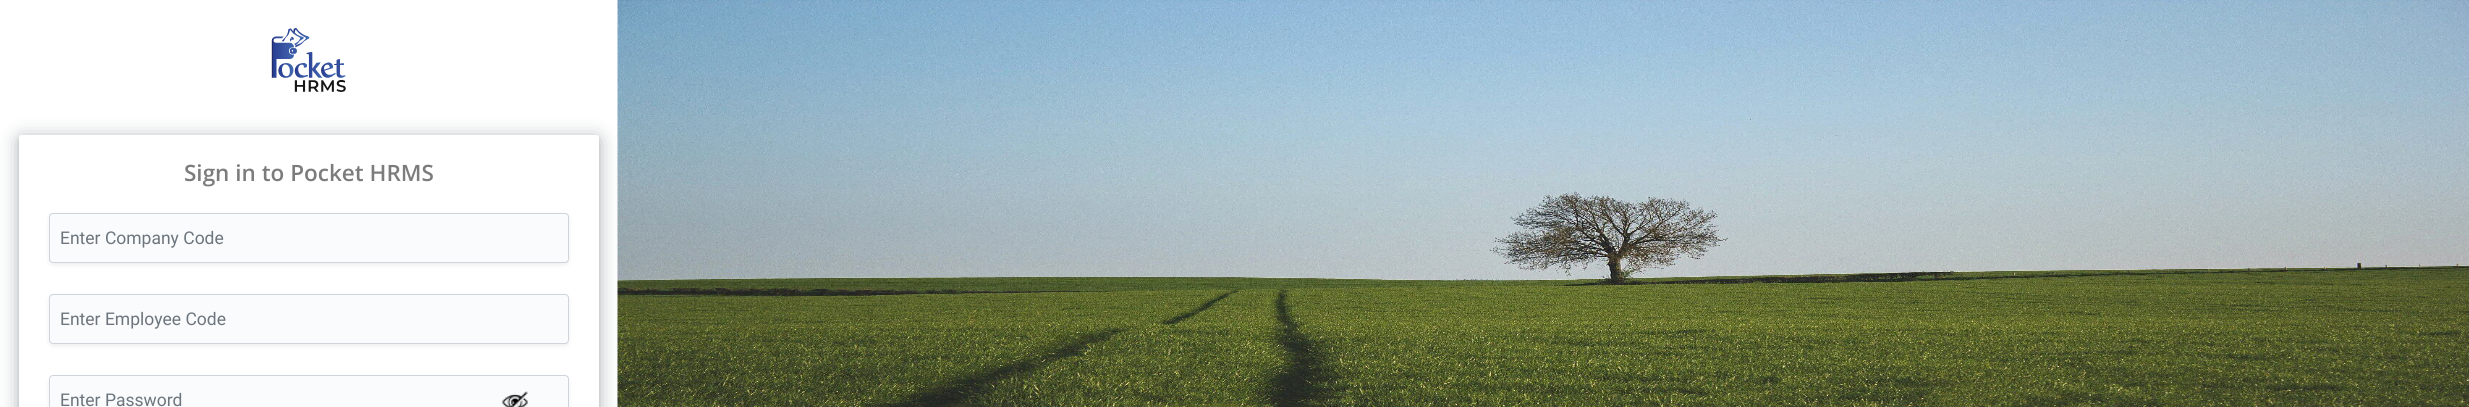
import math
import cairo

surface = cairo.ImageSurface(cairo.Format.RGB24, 2469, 407)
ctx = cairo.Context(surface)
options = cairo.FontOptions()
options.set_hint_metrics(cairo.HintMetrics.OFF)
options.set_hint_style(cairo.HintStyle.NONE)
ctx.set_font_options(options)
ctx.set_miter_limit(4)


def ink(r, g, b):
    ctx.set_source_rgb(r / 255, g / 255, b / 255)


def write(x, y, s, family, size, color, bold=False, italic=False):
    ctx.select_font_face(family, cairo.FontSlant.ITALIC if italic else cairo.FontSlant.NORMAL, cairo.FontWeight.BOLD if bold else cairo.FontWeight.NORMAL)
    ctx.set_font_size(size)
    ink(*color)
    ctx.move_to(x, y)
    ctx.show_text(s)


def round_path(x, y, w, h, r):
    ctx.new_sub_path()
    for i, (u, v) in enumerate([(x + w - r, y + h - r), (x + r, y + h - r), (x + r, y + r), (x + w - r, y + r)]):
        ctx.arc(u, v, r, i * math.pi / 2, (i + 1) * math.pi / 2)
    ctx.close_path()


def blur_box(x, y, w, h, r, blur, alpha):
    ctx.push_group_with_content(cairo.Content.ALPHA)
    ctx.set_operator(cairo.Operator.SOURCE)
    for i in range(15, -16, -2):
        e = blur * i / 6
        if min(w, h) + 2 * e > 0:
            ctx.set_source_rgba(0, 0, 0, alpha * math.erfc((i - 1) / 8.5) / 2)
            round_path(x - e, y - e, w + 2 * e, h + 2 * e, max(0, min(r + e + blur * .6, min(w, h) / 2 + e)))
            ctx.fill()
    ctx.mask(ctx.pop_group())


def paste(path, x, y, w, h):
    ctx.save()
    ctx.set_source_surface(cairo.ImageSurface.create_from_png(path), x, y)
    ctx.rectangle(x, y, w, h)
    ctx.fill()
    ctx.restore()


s1 = dict(family="Open Sans SemiBold", size=22.5, color=(124, 124, 124))
s2 = dict(family="Roboto", size=17.5, color=(108, 117, 125))

ink(255, 255, 255)
ctx.paint()
paste("pic1.png", 271, 28, 75, 64)
ink(14, 30, 37)
blur_box(19, 138, 580, 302, 2.5, 10, 0.32)
blur_box(19, 138, 580, 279, 2.5, 2.5, 0.12)
ink(255, 255, 255)
round_path(19, 135, 580, 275, 2.5)
ctx.fill()
write(184, 181, "Sign in to Pocket HRMS", **s1)
ink(0, 0, 0)
blur_box(49, 215, 520, 50, 4, 2.5, 0.07)
ink(250, 251, 252)
round_path(49.5, 213.5, 519, 49, 3.5)
ctx.fill_preserve()
ink(206, 212, 218)
ctx.set_line_width(1)
ctx.stroke()
write(60, 244, "Enter Company Code", **s2)
ink(0, 0, 0)
blur_box(49, 296, 520, 50, 4, 2.5, 0.07)
ink(250, 251, 252)
round_path(49.5, 294.5, 519, 49, 3.5)
ctx.fill_preserve()
ink(206, 212, 218)
ctx.stroke()
write(60, 325, "Enter Employee Code", **s2)
ink(0, 0, 0)
blur_box(49, 378, 520, 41, 4, 2.5, 0.07)
ink(250, 251, 252)
round_path(49.5, 375.5, 519, 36, 3.5)
ctx.fill_preserve()
ink(206, 212, 218)
ctx.stroke()
write(60, 406, "Enter Password", **s2)
paste("pic2.png", 502, 391, 26, 16)
paste("pic3.png", 617, 0, 1852, 407)
surface.write_to_png("screenshot.png")
